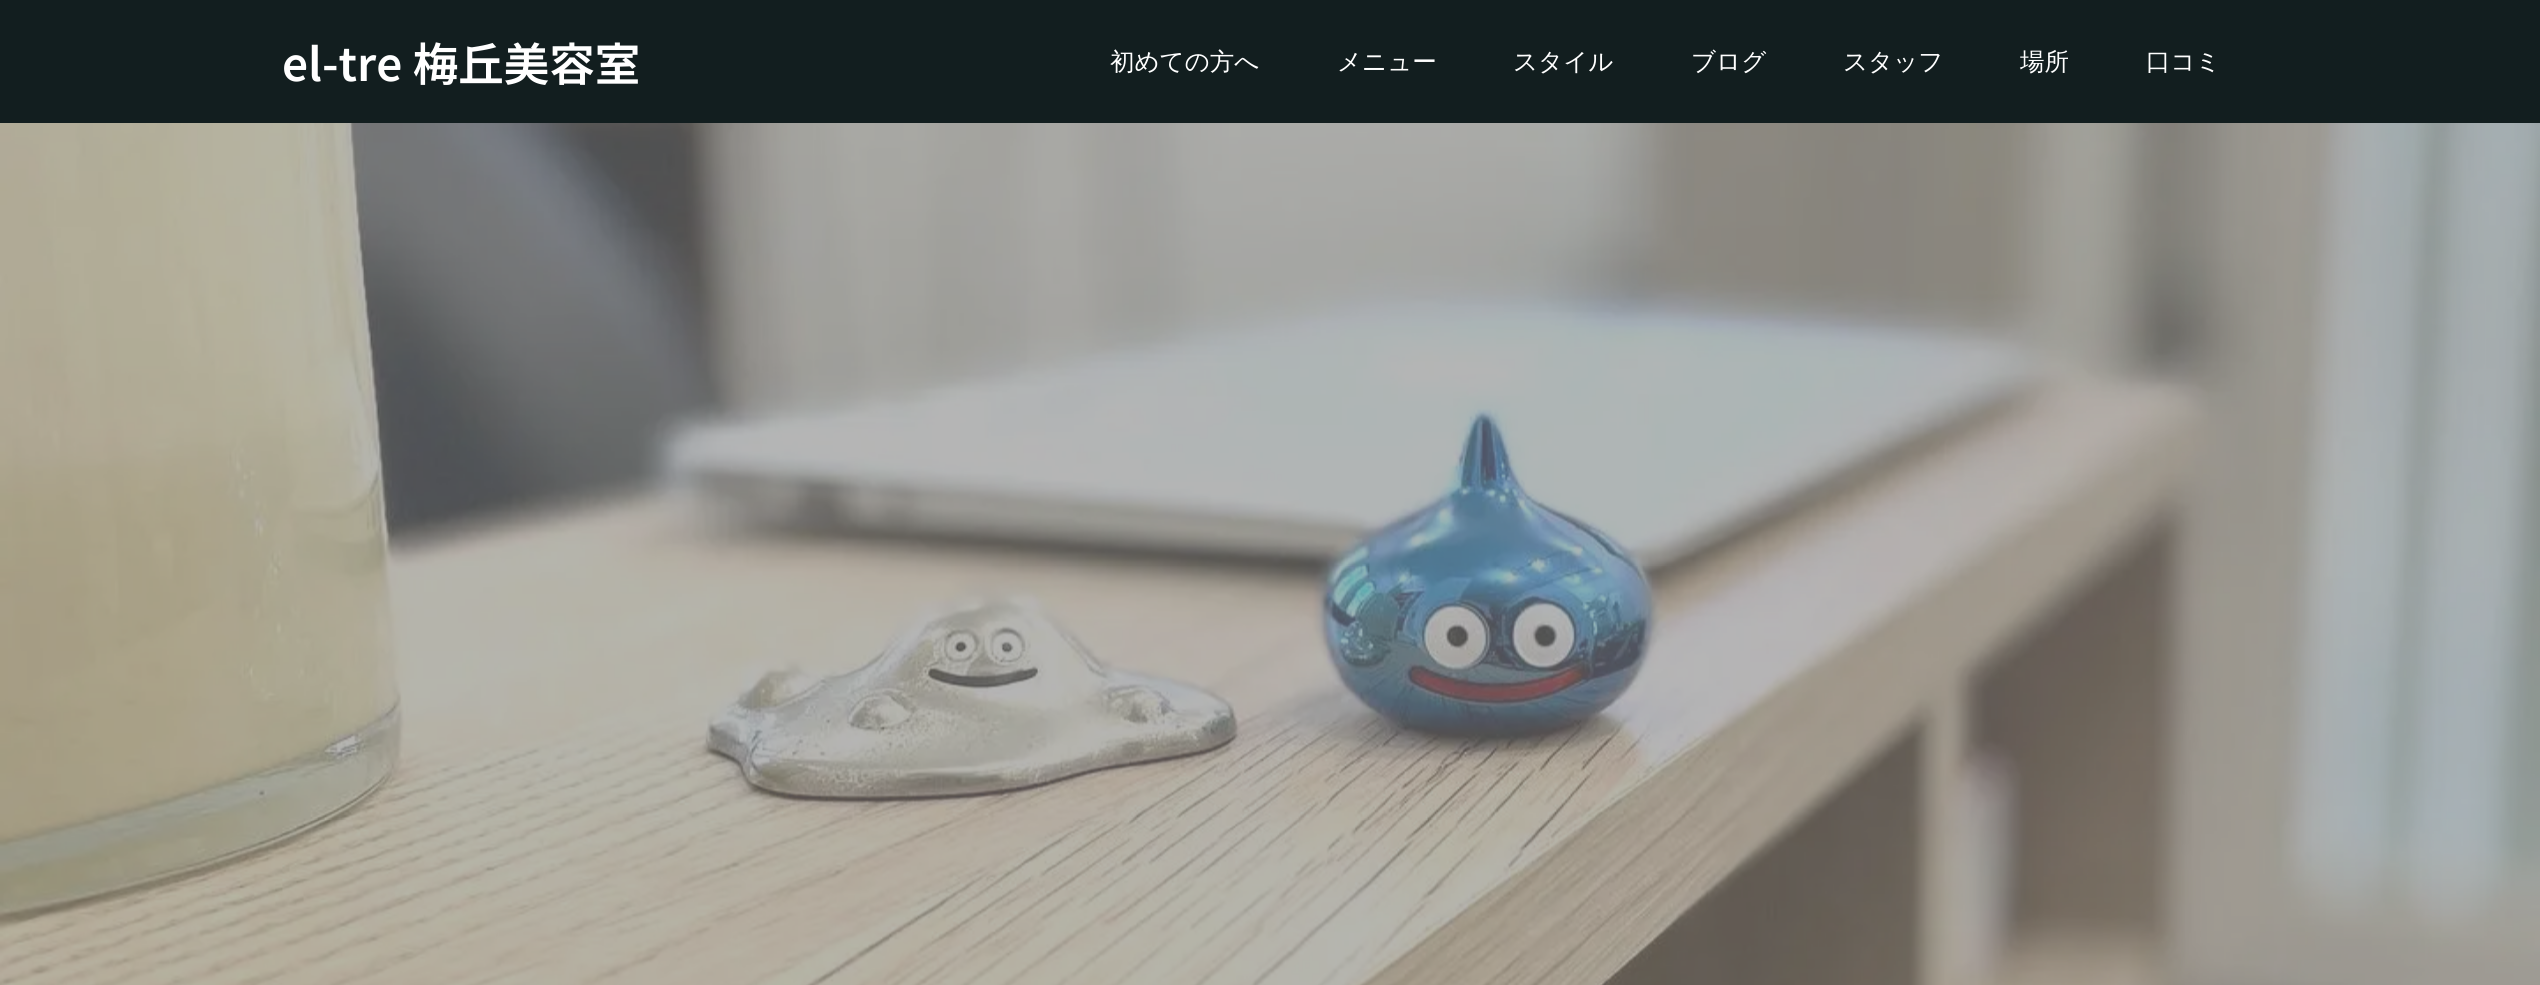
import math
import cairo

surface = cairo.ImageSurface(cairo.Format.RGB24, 2540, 985)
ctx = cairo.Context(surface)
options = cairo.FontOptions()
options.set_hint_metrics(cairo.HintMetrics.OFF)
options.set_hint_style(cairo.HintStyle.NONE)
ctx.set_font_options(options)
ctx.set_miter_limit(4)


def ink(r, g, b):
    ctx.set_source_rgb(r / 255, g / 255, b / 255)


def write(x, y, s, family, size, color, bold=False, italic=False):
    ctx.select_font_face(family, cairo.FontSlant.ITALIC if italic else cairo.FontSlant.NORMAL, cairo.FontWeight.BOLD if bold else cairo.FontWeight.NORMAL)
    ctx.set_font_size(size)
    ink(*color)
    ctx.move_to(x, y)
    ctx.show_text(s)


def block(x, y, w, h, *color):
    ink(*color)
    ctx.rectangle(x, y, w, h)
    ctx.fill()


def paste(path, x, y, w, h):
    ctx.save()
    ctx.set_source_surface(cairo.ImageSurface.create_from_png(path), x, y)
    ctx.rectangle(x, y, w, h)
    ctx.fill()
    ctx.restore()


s1 = dict(family="Noto Sans JP SemiBold", size=45.5, color=(255, 255, 255))
s2 = dict(family="WenQuanYi Zen Hei Medium", size=24.5, color=(255, 255, 255))

ink(255, 255, 255)
ctx.paint()
block(0, 0, 2540, 123, 18, 30, 31)
write(282, 81, "el-tre 梅丘美容室", **s1)
write(1110, 70, "初めての方へ", **s2)
write(1337, 70, "メニュー", **s2)
write(1513, 70, "スタイル", **s2)
write(1691, 70, "ブログ", **s2)
write(1843, 70, "スタッフ", **s2)
write(2020, 70, "場所", **s2)
write(2146, 70, "口コミ", **s2)
paste("pic1.png", 0, 123, 2540, 862)
surface.write_to_png("screenshot.png")
